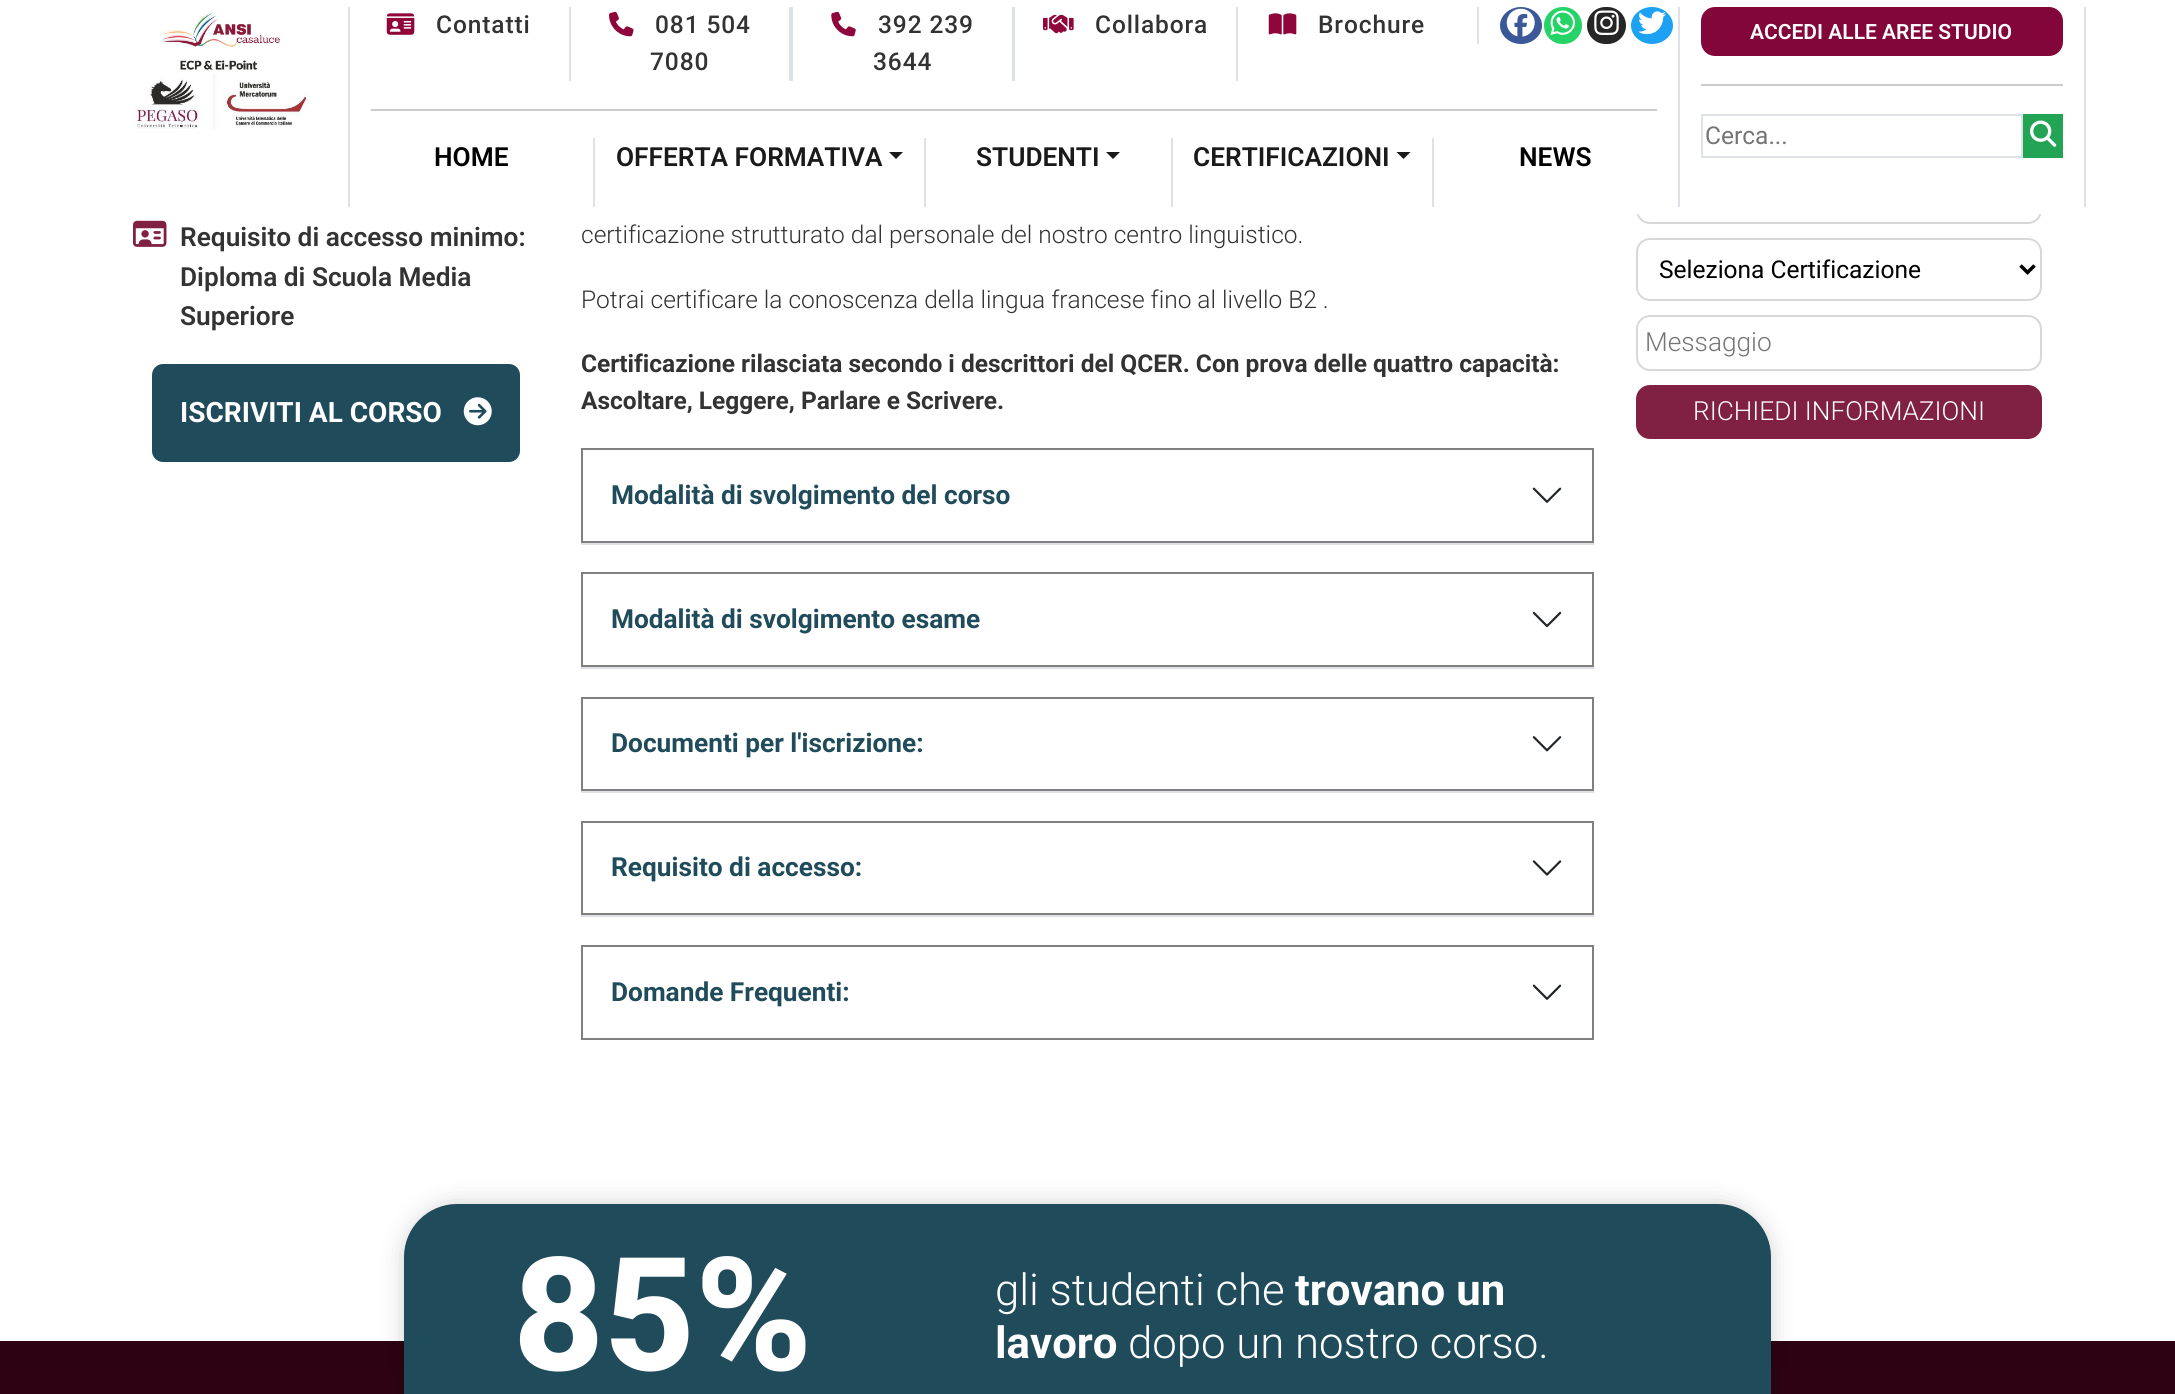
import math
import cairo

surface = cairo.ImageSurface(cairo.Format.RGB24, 2175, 1394)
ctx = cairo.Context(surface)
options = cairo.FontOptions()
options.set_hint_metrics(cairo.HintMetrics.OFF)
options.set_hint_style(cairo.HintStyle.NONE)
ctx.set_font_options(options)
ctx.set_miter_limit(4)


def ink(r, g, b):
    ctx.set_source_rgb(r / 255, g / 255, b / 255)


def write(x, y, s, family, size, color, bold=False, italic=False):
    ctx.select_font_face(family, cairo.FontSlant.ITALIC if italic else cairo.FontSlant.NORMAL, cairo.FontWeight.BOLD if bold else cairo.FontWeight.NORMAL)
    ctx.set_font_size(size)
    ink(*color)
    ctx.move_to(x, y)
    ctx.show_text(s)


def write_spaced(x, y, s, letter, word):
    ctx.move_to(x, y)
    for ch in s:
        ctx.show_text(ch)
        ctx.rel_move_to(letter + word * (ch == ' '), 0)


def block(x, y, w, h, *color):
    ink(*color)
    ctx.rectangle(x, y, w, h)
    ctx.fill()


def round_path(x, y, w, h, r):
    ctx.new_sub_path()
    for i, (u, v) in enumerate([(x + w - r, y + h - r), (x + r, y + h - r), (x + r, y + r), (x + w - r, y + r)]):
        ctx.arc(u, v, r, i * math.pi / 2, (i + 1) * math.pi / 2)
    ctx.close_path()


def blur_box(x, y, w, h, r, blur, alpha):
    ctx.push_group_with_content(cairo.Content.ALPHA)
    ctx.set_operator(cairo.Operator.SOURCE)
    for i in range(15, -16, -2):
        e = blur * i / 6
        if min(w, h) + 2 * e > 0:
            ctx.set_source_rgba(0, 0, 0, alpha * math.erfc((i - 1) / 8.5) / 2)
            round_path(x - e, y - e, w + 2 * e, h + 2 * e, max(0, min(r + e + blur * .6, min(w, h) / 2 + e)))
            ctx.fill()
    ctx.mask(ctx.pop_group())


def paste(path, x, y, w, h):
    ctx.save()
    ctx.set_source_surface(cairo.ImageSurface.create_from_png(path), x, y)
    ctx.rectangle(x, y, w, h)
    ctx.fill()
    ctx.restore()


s1 = dict(family="Roboto SemiBold", size=26.25, color=(0, 0, 0))
s2 = dict(family="Roboto SemiBold", size=26.25, color=(26, 26, 26))
s3 = dict(family="Roboto SemiBold", size=21, color=(255, 255, 255))
s4 = dict(family="Roboto", size=24.5, color=(117, 117, 117))
s5 = dict(family="Roboto SemiBold", size=26.25, color=(51, 51, 51))
s6 = dict(family="Roboto", size=28, color=(255, 255, 255), bold=True)
s7 = dict(family="Roboto Light", size=24.5, color=(51, 51, 51))
s8 = dict(family="Roboto", size=24.5, color=(51, 51, 51), bold=True)
s9 = dict(family="Roboto", size=26.25, color=(32, 75, 91), bold=True)
s10 = dict(family="Roboto", size=24.5, color=(0, 0, 0))
s11 = dict(family="Roboto Light", size=26.25, color=(117, 117, 117))
s12 = dict(family="Roboto Light", size=26.25, color=(255, 255, 255))
s13 = dict(family="Roboto ExtraBold", size=158, color=(255, 255, 255))
s14 = dict(family="Roboto Light", size=43.75, color=(255, 255, 255))
s15 = dict(family="Roboto", size=43.75, color=(255, 255, 255), bold=True)

ink(255, 255, 255)
ctx.paint()
round_path(1637, 153, 404, 70, 13)
ink(216, 216, 216)
ctx.stroke()
block(1636, 152, 406, 62, 255, 255, 255)
block(348, 7, 2, 200, 222, 226, 230)
paste("pic1.png", 135, 12, 173, 117)
block(1678, 7, 2, 200, 222, 226, 230)
paste("pic2.png", 386, 13, 29, 22)
ctx.select_font_face("Roboto Medium")
ctx.set_font_size(24.5)
ink(51, 51, 51)
write_spaced(436, 33, "Contatti", 0.9, 0)
block(789, 7, 4, 74, 222, 226, 230)
block(569, 7, 2, 74, 222, 226, 230)
paste("pic3.png", 609, 11, 25, 26)
ink(51, 51, 51)
write_spaced(655, 33, "081 504", 0.9, 0)
write_spaced(650, 70, "7080", 0.9, 0)
block(1012, 7, 3, 74, 222, 226, 230)
paste("pic4.png", 831, 11, 25, 26)
ink(51, 51, 51)
write_spaced(878, 33, "392 239", 0.9, 0)
write_spaced(873, 70, "3644", 0.9, 0)
block(1236, 7, 2, 74, 222, 226, 230)
paste("pic5.png", 1043, 14, 31, 20)
ink(51, 51, 51)
write_spaced(1095, 33, "Collabora", 0.9, 0)
paste("pic6.png", 1268, 13, 29, 22)
write_spaced(1318, 33, "Brochure", 0.9, 0)
block(1477, 7, 2, 37, 222, 226, 230)
ink(59, 89, 152)
ctx.new_path()
ctx.move_to(1521, 7)
ctx.curve_to(1532.5, 7, 1542, 15.5, 1542, 25.5)
ctx.curve_to(1542, 35.5, 1532.5, 44, 1521, 44)
ctx.curve_to(1509.5, 44, 1500, 35.5, 1500, 25.5)
ctx.curve_to(1500, 15.5, 1509.5, 7, 1521, 7)
ctx.close_path()
ctx.fill()
paste("pic7.png", 1506, 8, 29, 29)
ink(37, 211, 102)
round_path(1544, 7, 38, 37, 18.5)
ctx.fill()
paste("pic8.png", 1550, 10, 25, 25)
ink(38, 38, 38)
round_path(1587, 7, 39, 37, 18.5)
ctx.fill()
paste("pic9.png", 1594, 10, 25, 25)
ink(29, 161, 242)
ctx.new_path()
ctx.move_to(1652, 7)
ctx.curve_to(1663.5, 7, 1673, 15.5, 1673, 25.5)
ctx.curve_to(1673, 35.5, 1663.5, 44, 1652, 44)
ctx.curve_to(1640.5, 44, 1631, 35.5, 1631, 25.5)
ctx.curve_to(1631, 15.5, 1640.5, 7, 1652, 7)
ctx.close_path()
ctx.fill()
paste("pic10.png", 1638, 11, 28, 24)
block(371, 109, 1286, 2, 204, 204, 204)
write(434, 166, "HOME", **s1)
block(924, 138, 2, 69, 222, 226, 230)
block(593, 138, 2, 69, 222, 226, 230)
write(616, 166, "OFFERTA FORMATIVA", **s2)
ctx.new_path()
ctx.move_to(889, 152)
ctx.line_to(903, 152)
ctx.line_to(896, 159)
ctx.close_path()
ctx.fill()
write(976, 166, "STUDENTI", **s2)
ctx.new_path()
ctx.move_to(1106, 152)
ctx.line_to(1120, 152)
ctx.line_to(1113, 159)
ctx.close_path()
ctx.fill()
block(1432, 138, 2, 69, 222, 226, 230)
block(1171, 138, 2, 69, 222, 226, 230)
write(1193, 166, "CERTIFICAZIONI", **s2)
ctx.new_path()
ctx.move_to(1396.5, 152)
ctx.line_to(1410.5, 152)
ctx.line_to(1403.5, 159)
ctx.close_path()
ctx.fill()
write(1519, 166, "NEWS", **s1)
block(2084, 7, 2, 200, 222, 226, 230)
ink(131, 6, 58)
round_path(1701, 7, 362, 49, 14)
ctx.fill()
write(1750, 39, "ACCEDI ALLE AREE STUDIO", **s3)
block(1701, 84, 362, 2, 204, 204, 204)
ctx.rectangle(1702, 115, 320, 42)
ink(222, 226, 230)
ctx.stroke()
write(1705, 144, "Cerca...", **s4)
block(2023, 114, 40, 44, 35, 164, 85)
paste("pic11.png", 2030, 120, 27, 27)
paste("pic12.png", 133, 220, 34, 27)
write(180, 246, "Requisito di accesso minimo:", **s5)
write(180, 286, "Diploma di Scuola Media", **s5)
write(180, 325, "Superiore", **s5)
ink(32, 75, 91)
round_path(152, 364, 368, 98, 11)
ctx.fill()
write(180, 422, "ISCRIVITI AL CORSO", **s6)
paste("pic13.png", 463, 397, 29, 29)
write(581, 243, "certificazione strutturato dal personale del nostro centro linguistico.", **s7)
write(581, 308, "Potrai certificare la conoscenza della lingua francese fino al livello B2 .", **s7)
write(581, 372, "Certificazione rilasciata secondo i descrittori del QCER. Con prova delle quattro capacità:", **s8)
write(581, 409, "Ascoltare, Leggere, Parlare e Scrivere.", **s8)
block(581, 543, 1013, 2, 222, 226, 230)
ctx.rectangle(582, 449, 1011, 93)
ink(128, 128, 128)
ctx.stroke()
write(611, 504, "Modalità di svolgimento del corso", **s9)
paste("pic14.png", 1532, 487, 30, 16)
block(581, 667, 1013, 2, 222, 226, 230)
ctx.rectangle(582, 573, 1011, 93)
ink(128, 128, 128)
ctx.stroke()
write(611, 628, "Modalità di svolgimento esame", **s9)
paste("pic15.png", 1532, 611, 30, 17)
block(581, 791, 1013, 2, 222, 226, 230)
ctx.rectangle(582, 698, 1011, 92)
ink(128, 128, 128)
ctx.stroke()
write(611, 752, "Documenti per l'iscrizione:", **s9)
paste("pic16.png", 1532, 736, 30, 16)
block(581, 915, 1013, 2, 222, 226, 230)
ctx.rectangle(582, 822, 1011, 92)
ink(128, 128, 128)
ctx.stroke()
write(611, 876, "Requisito di accesso:", **s9)
paste("pic17.png", 1532, 860, 30, 16)
ctx.rectangle(582, 946, 1011, 93)
ink(128, 128, 128)
ctx.stroke()
write(611, 1001, "Domande Frequenti:", **s9)
paste("pic14.png", 1532, 984, 30, 16)
round_path(1637, 239, 404, 61, 13)
ink(216, 216, 216)
ctx.stroke()
ctx.new_path()
ctx.move_to(2020.5, 265.5)
ctx.line_to(2027.5, 272.5)
ctx.line_to(2034.5, 265.5)
ink(0, 0, 0)
ctx.set_line_width(3.5)
ctx.stroke()
write(1659, 278, "Seleziona Certificazione", **s10)
round_path(1637, 316, 404, 54, 13)
ink(216, 216, 216)
ctx.set_line_width(2)
ctx.stroke()
write(1645, 351, "Messaggio", **s11)
ink(128, 33, 68)
round_path(1636, 385, 406, 54, 14)
ctx.fill()
write(1693, 420, "RICHIEDI INFORMAZIONI", **s12)
gradient = cairo.LinearGradient(1088, 1340, 1088, 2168)
gradient.add_color_stop_rgba(0, 0.176, 0.008, 0.071, 1)
gradient.add_color_stop_rgba(1, 0.243, 0.004, 0.094, 1)
ctx.set_source(gradient)
ctx.rectangle(0, 1341, 2175, 53)
ctx.fill()
ink(0, 0, 0)
blur_box(404, 1204, 1367, 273, 53, 11.5, 0.18)
ink(32, 75, 91)
round_path(404, 1204, 1367, 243, 53)
ctx.fill()
write(513, 1370, "85%", **s13)
write(995, 1305, "gli studenti che", **s14)
write(1295, 1305, "trovano un", **s15)
write(995, 1358, "lavoro", **s15)
write(1128, 1358, "dopo un nostro corso.", **s14)
surface.write_to_png("screenshot.png")
